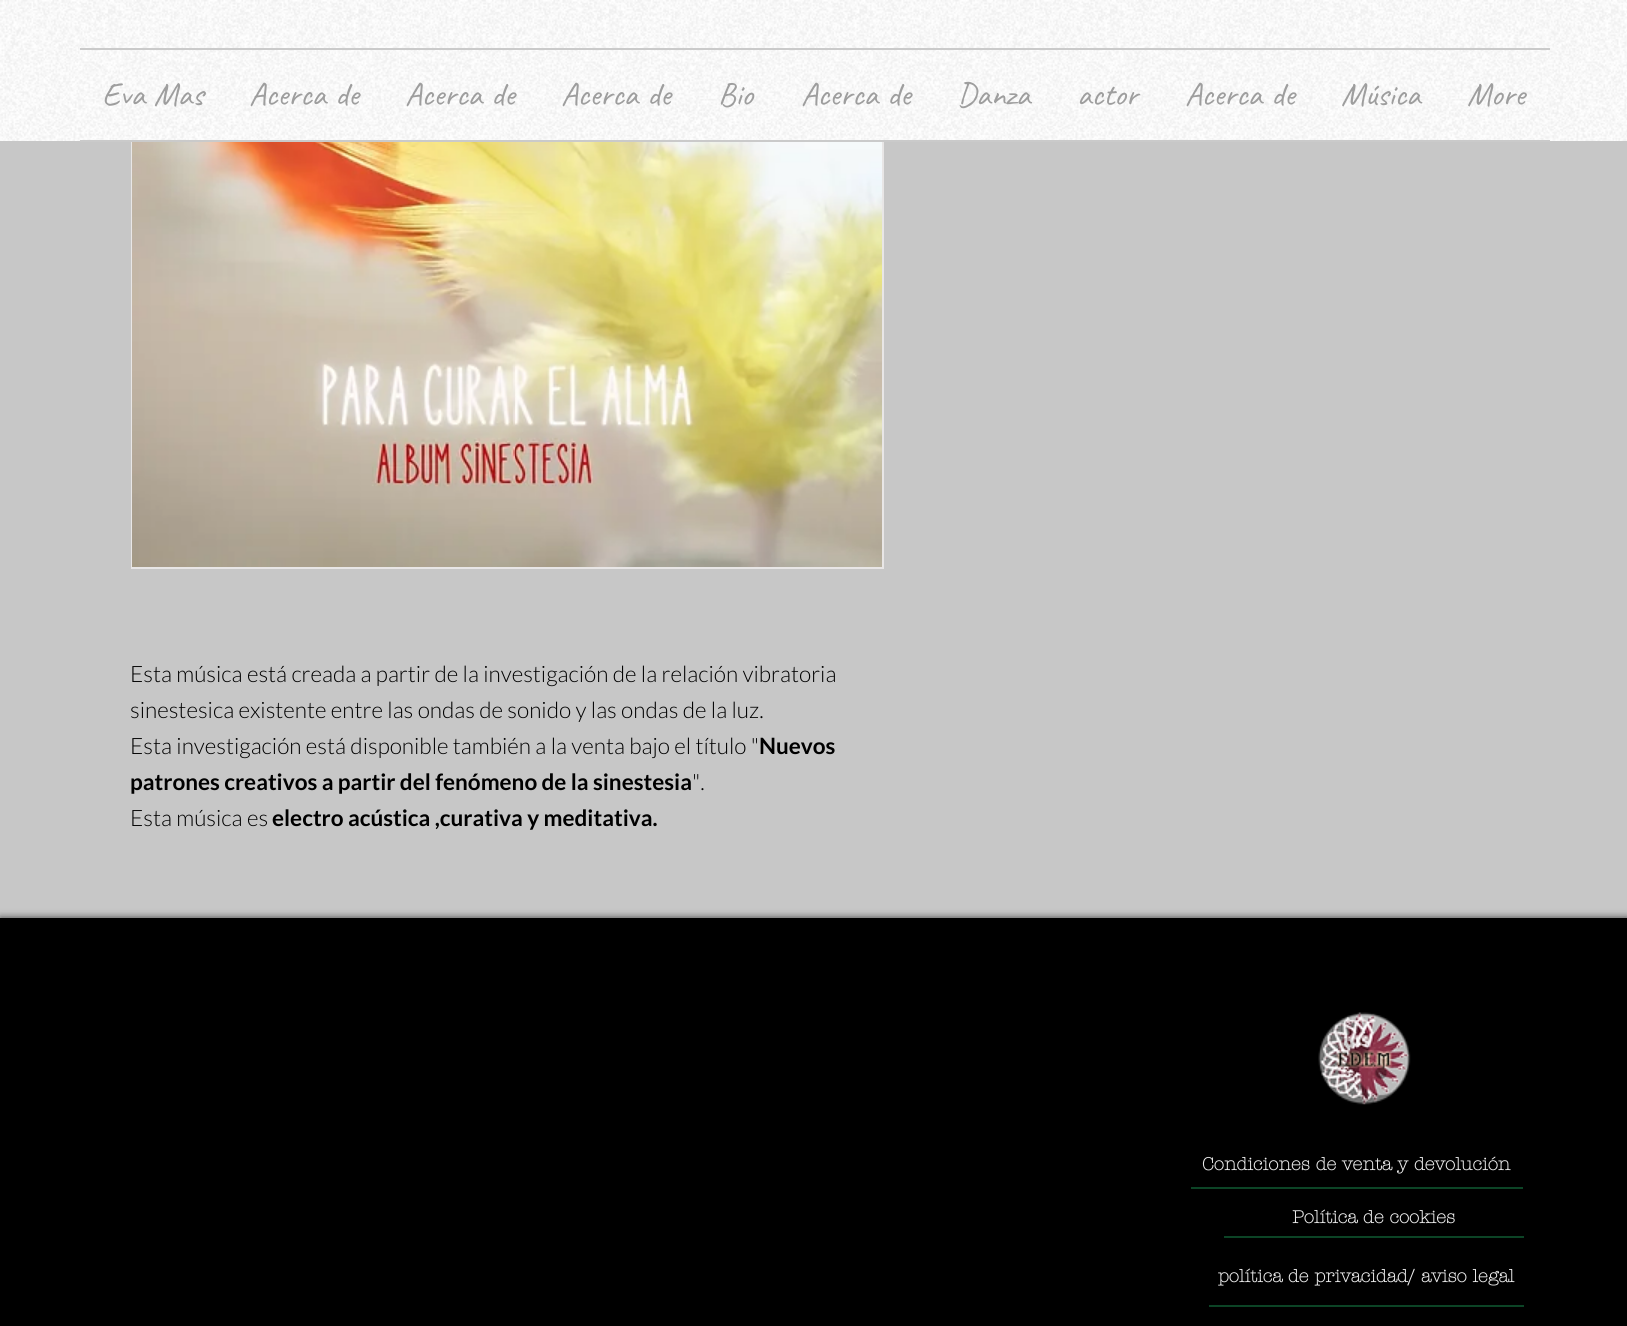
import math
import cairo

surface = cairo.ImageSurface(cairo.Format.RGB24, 1627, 1326)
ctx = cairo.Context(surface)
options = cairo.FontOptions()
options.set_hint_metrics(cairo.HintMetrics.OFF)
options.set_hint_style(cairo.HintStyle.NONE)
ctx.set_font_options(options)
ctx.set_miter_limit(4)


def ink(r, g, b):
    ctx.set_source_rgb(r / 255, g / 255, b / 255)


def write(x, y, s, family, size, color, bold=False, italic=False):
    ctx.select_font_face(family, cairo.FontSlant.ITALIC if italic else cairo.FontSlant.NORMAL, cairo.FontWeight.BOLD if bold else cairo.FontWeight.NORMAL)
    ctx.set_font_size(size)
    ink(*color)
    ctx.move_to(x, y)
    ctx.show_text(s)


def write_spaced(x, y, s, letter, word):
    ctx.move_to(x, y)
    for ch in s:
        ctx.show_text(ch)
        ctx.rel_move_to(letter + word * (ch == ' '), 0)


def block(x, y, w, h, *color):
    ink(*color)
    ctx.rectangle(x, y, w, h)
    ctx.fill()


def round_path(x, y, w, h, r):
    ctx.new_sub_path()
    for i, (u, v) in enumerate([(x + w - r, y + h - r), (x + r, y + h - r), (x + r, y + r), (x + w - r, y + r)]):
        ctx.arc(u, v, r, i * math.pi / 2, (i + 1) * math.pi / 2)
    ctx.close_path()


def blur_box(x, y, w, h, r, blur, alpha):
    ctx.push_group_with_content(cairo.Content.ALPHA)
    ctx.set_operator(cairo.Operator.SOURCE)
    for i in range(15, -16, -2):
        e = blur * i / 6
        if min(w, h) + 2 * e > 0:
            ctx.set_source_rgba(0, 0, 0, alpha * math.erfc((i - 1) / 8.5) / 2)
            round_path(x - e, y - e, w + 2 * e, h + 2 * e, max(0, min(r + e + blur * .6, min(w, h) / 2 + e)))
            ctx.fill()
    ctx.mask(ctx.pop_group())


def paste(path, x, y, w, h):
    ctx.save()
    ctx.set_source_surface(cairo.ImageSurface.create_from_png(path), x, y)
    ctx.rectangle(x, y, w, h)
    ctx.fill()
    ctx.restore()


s1 = dict(family="Caveat", size=33, color=(158, 158, 158))
s2 = dict(family="Lato Light", size=22.5, color=(0, 0, 0))
s3 = dict(family="Lato", size=22.5, color=(0, 0, 0), bold=True)
s4 = dict(family="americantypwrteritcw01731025", size=18, color=(235, 235, 235), bold=True)

ink(199, 199, 199)
ctx.paint()
ctx.rectangle(132, -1, 751, 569)
ink(232, 230, 230)
ctx.stroke()
block(0, 0, 1627, 141, 255, 255, 255)
paste("pic1.png", 0, 0, 1627, 141)
block(80, 48, 1470, 2, 202, 202, 202)
block(80, 140, 1470, 2, 202, 202, 202)
ctx.select_font_face("Caveat")
ctx.set_font_size(33)
ink(158, 158, 158)
write_spaced(102, 105, "Eva Mas", 0, 1)
write_spaced(249, 105, "Acerca de", 0, 1)
write_spaced(405, 105, "Acerca de", 0, 1)
write_spaced(561, 105, "Acerca de", 0, 1)
write(718, 105, "Bio", **s1)
write_spaced(801, 105, "Acerca de", 0, 1)
write(957, 105, "Danza", **s1)
write(1077, 105, "actor", **s1)
write_spaced(1185, 105, "Acerca de", 0, 1)
write(1341, 105, "Música", **s1)
write(1467, 105, "More", **s1)
paste("pic2.png", 132, 142, 750, 425)
write(130, 682, "Esta música está creada a partir de la investigación de la relación vibratoria", **s2)
write(130, 718, "sinestesica existente entre las ondas de sonido y las ondas de la luz.", **s2)
write(130, 754, "Esta investigación está disponible también a la venta bajo el título \"", **s2)
write(759, 754, "Nuevos", **s3)
write(130, 790, "patrones creativos a partir del fenómeno de la sinestesia", **s3)
write(692, 790, "\".", **s2)
write(130, 826, "Esta música es", **s2)
write(272, 826, "electro acústica ,curativa y meditativa.", **s3)
ink(0, 0, 0)
blur_box(0, 918, 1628, 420, 0, 4, 0.7)
block(0, 918, 1627, 408, 0, 0, 0)
paste("pic3.png", 1318, 1012, 93, 93)
block(1191, 1187, 332, 2, 12, 68, 38)
write(1202, 1170, "Condiciones de venta y devolución", **s4)
block(1224, 1236, 300, 2, 12, 68, 38)
write(1292, 1223, "Política de cookies", **s4)
block(1209, 1305, 315, 2, 12, 68, 38)
write(1218, 1282, "política de privacidad/ aviso legal", **s4)
surface.write_to_png("screenshot.png")
